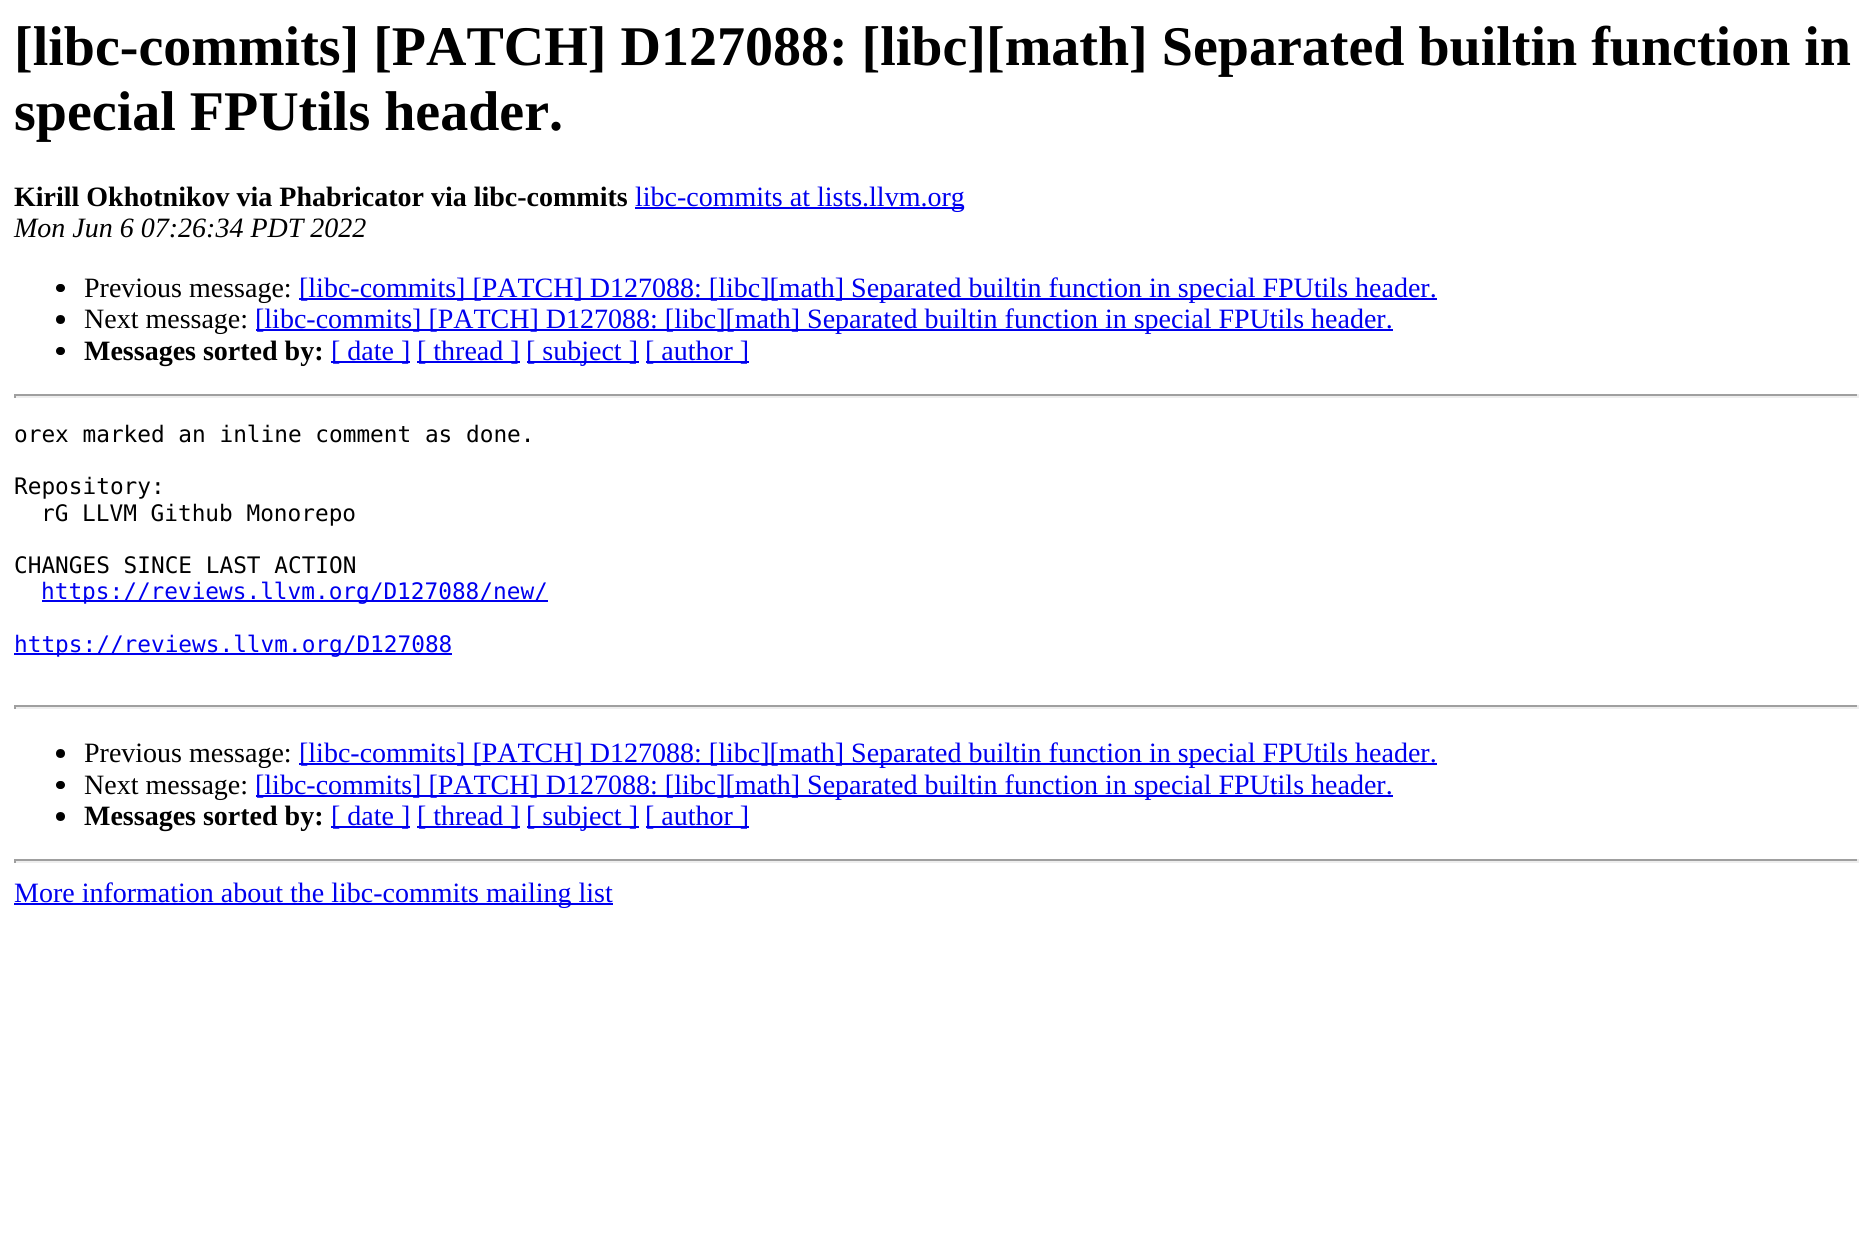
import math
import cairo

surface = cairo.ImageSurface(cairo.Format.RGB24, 1871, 1238)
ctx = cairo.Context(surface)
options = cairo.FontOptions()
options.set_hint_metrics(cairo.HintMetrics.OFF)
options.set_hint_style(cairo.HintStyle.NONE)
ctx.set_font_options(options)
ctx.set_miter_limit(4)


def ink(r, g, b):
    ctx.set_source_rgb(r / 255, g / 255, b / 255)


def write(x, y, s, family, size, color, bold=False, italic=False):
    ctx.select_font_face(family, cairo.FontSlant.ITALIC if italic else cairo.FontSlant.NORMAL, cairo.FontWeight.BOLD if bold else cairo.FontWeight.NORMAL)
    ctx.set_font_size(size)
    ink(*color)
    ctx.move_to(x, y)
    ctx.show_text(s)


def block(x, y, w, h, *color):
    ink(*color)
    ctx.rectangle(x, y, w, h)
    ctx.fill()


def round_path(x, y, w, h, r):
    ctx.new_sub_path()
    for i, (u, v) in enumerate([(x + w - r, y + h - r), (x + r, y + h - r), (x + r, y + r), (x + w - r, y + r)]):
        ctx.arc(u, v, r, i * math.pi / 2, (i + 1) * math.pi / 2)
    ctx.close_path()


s1 = dict(family="Liberation Serif", size=56, color=(0, 0, 0), bold=True)
s2 = dict(family="Liberation Serif", size=28, color=(0, 0, 0), bold=True)
s3 = dict(family="Liberation Serif", size=28, color=(0, 0, 238))
s4 = dict(family="Liberation Serif", size=28, color=(0, 0, 0), italic=True)
s5 = dict(family="Liberation Serif", size=28, color=(0, 0, 0))
s6 = dict(family="DejaVu Sans Mono", size=22.75, color=(0, 0, 0))
s7 = dict(family="DejaVu Sans Mono", size=22.75, color=(0, 0, 238))

ink(255, 255, 255)
ctx.paint()
write(14, 65, "[libc-commits] [PATCH] D127088: [libc][math] Separated builtin function in", **s1)
write(14, 130, "special FPUtils header.", **s1)
write(14, 206, "Kirill Okhotnikov via Phabricator via libc-commits", **s2)
block(635, 207, 329, 2, 0, 0, 238)
write(635, 206, "libc-commits at lists.llvm.org", **s3)
write(14, 237, "Mon Jun 6 07:26:34 PDT 2022", **s4)
round_path(56, 284, 9, 8, 4)
ctx.fill()
write(84, 297, "Previous message:", **s5)
block(299, 298, 1138, 2, 0, 0, 238)
write(299, 297, "[libc-commits] [PATCH] D127088: [libc][math] Separated builtin function in special FPUtils header.", **s3)
ink(0, 0, 0)
ctx.new_path()
ctx.arc(60.5, 319.5, 4.5, 0, 2 * math.pi)
ctx.fill()
write(84, 328, "Next message:", **s5)
block(256, 329, 1137, 2, 0, 0, 238)
write(255, 328, "[libc-commits] [PATCH] D127088: [libc][math] Separated builtin function in special FPUtils header.", **s3)
ink(0, 0, 0)
round_path(56, 347, 9, 8, 4)
ctx.fill()
write(84, 360, "Messages sorted by:", **s2)
block(331, 361, 79, 2, 0, 0, 238)
write(331, 360, "[ date ]", **s3)
block(417, 361, 103, 2, 0, 0, 238)
write(417, 360, "[ thread ]", **s3)
block(527, 361, 112, 2, 0, 0, 238)
write(526, 360, "[ subject ]", **s3)
block(646, 361, 103, 2, 0, 0, 238)
write(645, 360, "[ author ]", **s3)
block(14, 394, 1845, 2, 159, 159, 159)
block(1857, 394, 2, 4, 238, 238, 238)
block(14, 396, 1845, 2, 238, 238, 238)
block(14, 394, 2, 4, 159, 159, 159)
write(14, 442, "orex marked an inline comment as done.", **s6)
write(14, 494, "Repository:", **s6)
write(41, 521, "rG LLVM Github Monorepo", **s6)
write(14, 573, "CHANGES SINCE LAST ACTION", **s6)
block(42, 600, 506, 2, 0, 0, 238)
write(41, 599, "https://reviews.llvm.org/D127088/new/", **s7)
block(14, 653, 438, 2, 0, 0, 238)
write(14, 652, "https://reviews.llvm.org/D127088", **s7)
block(14, 705, 1845, 2, 159, 159, 159)
block(1857, 705, 2, 4, 238, 238, 238)
block(14, 707, 1845, 2, 238, 238, 238)
block(14, 705, 2, 4, 159, 159, 159)
ink(0, 0, 0)
ctx.new_path()
ctx.arc(60.5, 753.5, 4.5, 0, 2 * math.pi)
ctx.fill()
write(84, 762, "Previous message:", **s5)
block(299, 763, 1138, 2, 0, 0, 238)
write(299, 762, "[libc-commits] [PATCH] D127088: [libc][math] Separated builtin function in special FPUtils header.", **s3)
ink(0, 0, 0)
round_path(56, 781, 9, 8, 4)
ctx.fill()
write(84, 794, "Next message:", **s5)
block(256, 795, 1137, 2, 0, 0, 238)
write(255, 794, "[libc-commits] [PATCH] D127088: [libc][math] Separated builtin function in special FPUtils header.", **s3)
ink(0, 0, 0)
ctx.new_path()
ctx.arc(60.5, 816.5, 4.5, 0, 2 * math.pi)
ctx.fill()
write(84, 825, "Messages sorted by:", **s2)
block(331, 826, 79, 2, 0, 0, 238)
write(331, 825, "[ date ]", **s3)
block(417, 826, 103, 2, 0, 0, 238)
write(417, 825, "[ thread ]", **s3)
block(527, 826, 112, 2, 0, 0, 238)
write(526, 825, "[ subject ]", **s3)
block(646, 826, 103, 2, 0, 0, 238)
write(645, 825, "[ author ]", **s3)
block(14, 859, 1845, 2, 159, 159, 159)
block(1857, 859, 2, 4, 238, 238, 238)
block(14, 861, 1845, 2, 238, 238, 238)
block(14, 859, 2, 4, 159, 159, 159)
block(14, 903, 599, 2, 0, 0, 238)
write(14, 902, "More information about the libc-commits mailing list", **s3)
surface.write_to_png("screenshot.png")
